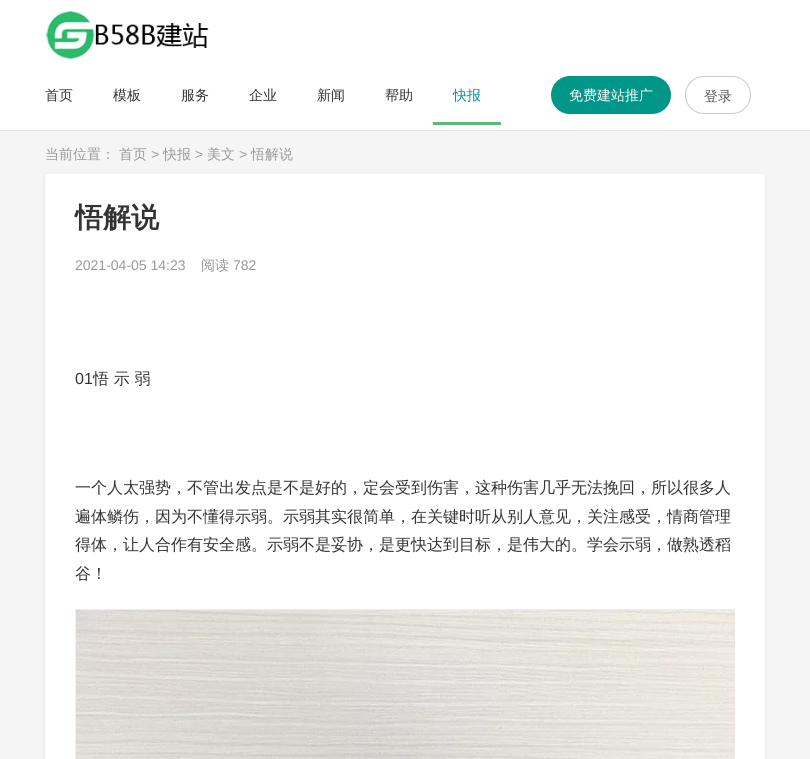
import math
import cairo

surface = cairo.ImageSurface(cairo.Format.RGB24, 810, 759)
ctx = cairo.Context(surface)
options = cairo.FontOptions()
options.set_hint_metrics(cairo.HintMetrics.OFF)
options.set_hint_style(cairo.HintStyle.NONE)
ctx.set_font_options(options)
ctx.set_miter_limit(4)


def ink(r, g, b):
    ctx.set_source_rgb(r / 255, g / 255, b / 255)


def write(x, y, s, family, size, color, bold=False, italic=False):
    ctx.select_font_face(family, cairo.FontSlant.ITALIC if italic else cairo.FontSlant.NORMAL, cairo.FontWeight.BOLD if bold else cairo.FontWeight.NORMAL)
    ctx.set_font_size(size)
    ink(*color)
    ctx.move_to(x, y)
    ctx.show_text(s)


def block(x, y, w, h, *color):
    ink(*color)
    ctx.rectangle(x, y, w, h)
    ctx.fill()


def round_path(x, y, w, h, r):
    ctx.new_sub_path()
    for i, (u, v) in enumerate([(x + w - r, y + h - r), (x + r, y + h - r), (x + r, y + r), (x + w - r, y + r)]):
        ctx.arc(u, v, r, i * math.pi / 2, (i + 1) * math.pi / 2)
    ctx.close_path()


def blur_box(x, y, w, h, r, blur, alpha):
    ctx.push_group_with_content(cairo.Content.ALPHA)
    ctx.set_operator(cairo.Operator.SOURCE)
    for i in range(15, -16, -2):
        e = blur * i / 6
        if min(w, h) + 2 * e > 0:
            ctx.set_source_rgba(0, 0, 0, alpha * math.erfc((i - 1) / 8.5) / 2)
            round_path(x - e, y - e, w + 2 * e, h + 2 * e, max(0, min(r + e + blur * .6, min(w, h) / 2 + e)))
            ctx.fill()
    ctx.mask(ctx.pop_group())


def paste(path, x, y, w, h):
    ctx.save()
    ctx.set_source_surface(cairo.ImageSurface.create_from_png(path), x, y)
    ctx.rectangle(x, y, w, h)
    ctx.fill()
    ctx.restore()


s1 = dict(family="WenQuanYi Zen Hei Medium", size=14, color=(51, 51, 51))
s2 = dict(family="WenQuanYi Zen Hei Medium", size=14, color=(0, 150, 136))
s3 = dict(family="WenQuanYi Zen Hei Medium", size=14, color=(255, 255, 255))
s4 = dict(family="WenQuanYi Zen Hei Medium", size=14, color=(85, 85, 85))
s5 = dict(family="WenQuanYi Zen Hei Medium", size=14, color=(153, 153, 153))
s6 = dict(family="Liberation Sans", size=14, color=(153, 153, 153))
s7 = dict(family="WenQuanYi Zen Hei", size=28, color=(51, 51, 51), bold=True)
s8 = dict(family="Liberation Sans", size=16, color=(51, 51, 51))
s9 = dict(family="WenQuanYi Zen Hei Medium", size=16, color=(51, 51, 51))

ink(255, 255, 255)
ctx.paint()
block(0, 130, 810, 1, 229, 229, 229)
paste("pic1.png", 45, 10, 164, 50)
write(45, 100, "首页", **s1)
write(113, 100, "模板", **s1)
write(181, 100, "服务", **s1)
write(249, 100, "企业", **s1)
write(317, 100, "新闻", **s1)
write(385, 100, "帮助", **s1)
write(453, 100, "快报", **s2)
block(433, 122, 68, 3, 95, 184, 120)
ink(0, 150, 136)
round_path(551, 76, 120, 38, 19)
ctx.fill()
write(569, 100, "免费建站推广", **s3)
round_path(685.5, 76.5, 65, 37, 18.5)
ink(201, 201, 201)
ctx.set_line_width(1)
ctx.stroke()
write(704, 101, "登录", **s4)
block(0, 131, 810, 628, 245, 245, 245)
write(45, 159, "当前位置：", **s5)
write(119, 159, "首页", **s5)
write(151, 159, ">", **s6)
write(163, 159, "快报", **s5)
write(195, 159, ">", **s6)
write(207, 159, "美文", **s5)
write(239, 159, ">", **s6)
write(251, 159, "悟解说", **s5)
ink(26, 26, 26)
blur_box(45, 175, 720, 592, 3, 1.5, 0.1)
ink(255, 255, 255)
round_path(45, 174, 720, 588, 3)
ctx.fill()
write(75, 227, "悟解说", **s7)
write(75, 270, "2021-04-05 14:23", **s6)
write(201, 270, "阅读", **s5)
write(233, 270, "782", **s6)
write(75, 384, "01", **s8)
write(93, 384, "悟 示 弱", **s9)
write(75, 493, "一个人太强势，不管出发点是不是好的，定会受到伤害，这种伤害几乎无法挽回，所以很多人", **s9)
write(75, 522, "遍体鳞伤，因为不懂得示弱。示弱其实很简单，在关键时听从别人意见，关注感受，情商管理", **s9)
write(75, 550, "得体，让人合作有安全感。示弱不是妥协，是更快达到目标，是伟大的。学会示弱，做熟透稻", **s9)
write(75, 579, "谷！", **s9)
ctx.save()
ctx.rectangle(75, 609, 660, 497)
ctx.clip()
ctx.rectangle(75.5, 609.5, 661, 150)
ink(238, 238, 238)
ctx.stroke()
ctx.restore()
paste("pic2.png", 76, 610, 659, 149)
surface.write_to_png("screenshot.png")
